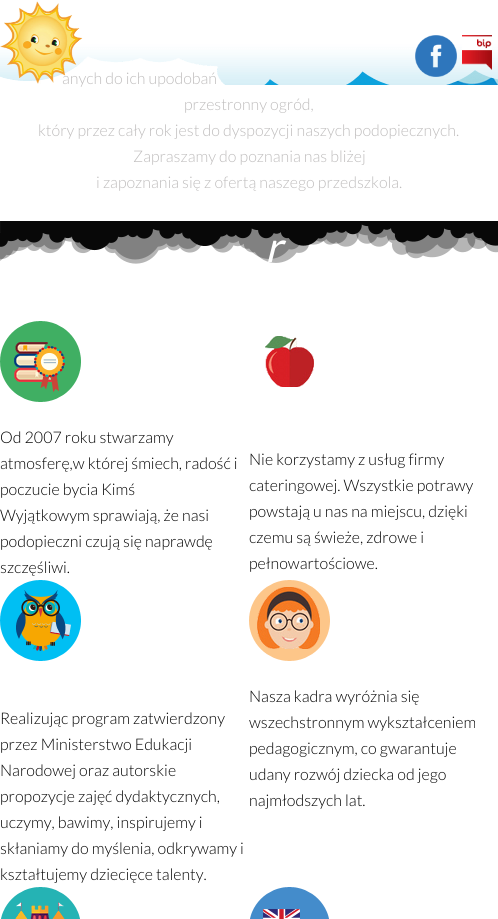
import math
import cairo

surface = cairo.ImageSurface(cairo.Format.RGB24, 498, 919)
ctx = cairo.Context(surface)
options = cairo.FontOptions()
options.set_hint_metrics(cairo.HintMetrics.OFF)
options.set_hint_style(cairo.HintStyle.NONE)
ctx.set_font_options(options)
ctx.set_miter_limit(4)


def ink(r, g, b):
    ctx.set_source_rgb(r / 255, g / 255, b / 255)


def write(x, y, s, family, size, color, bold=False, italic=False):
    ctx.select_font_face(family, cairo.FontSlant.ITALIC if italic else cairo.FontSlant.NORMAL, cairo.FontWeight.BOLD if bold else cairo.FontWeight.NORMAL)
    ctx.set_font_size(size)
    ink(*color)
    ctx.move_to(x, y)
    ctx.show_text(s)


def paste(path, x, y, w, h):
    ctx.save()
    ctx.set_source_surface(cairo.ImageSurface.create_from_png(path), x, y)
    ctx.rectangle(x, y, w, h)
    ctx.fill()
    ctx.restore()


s1 = dict(family="Lato Light", size=16, color=(191, 189, 189))
s2 = dict(family="Lato", size=42, color=(255, 255, 255), italic=True)
s3 = dict(family="Lato Light", size=16, color=(3, 3, 3))

ink(255, 255, 255)
ctx.paint()
write(62, 84, "anych do ich upodobań", **s1)
paste("pic1.png", 0, 0, 498, 85)
paste("pic2.png", 0, 1, 83, 83)
paste("pic3.png", 415, 35, 42, 42)
paste("pic4.png", 462, 35, 30, 35)
write(184, 110, "przestronny ogród,", **s1)
write(38, 136, "który przez cały rok jest do dyspozycji naszych podopiecznych.", **s1)
write(133, 162, "Zapraszamy do poznania nas bliżej", **s1)
write(96, 188, "i zapoznania się z ofertą naszego przedszkola.", **s1)
paste("pic5.png", 0, 221, 498, 43)
write(265, 262, "r", **s2)
paste("pic6.png", 0, 321, 81, 81)
write(0, 443, "Od 2007 roku stwarzamy", **s3)
write(0, 469, "atmosferę,w której śmiech, radość i", **s3)
write(0, 495, "poczucie bycia Kimś", **s3)
write(0, 521, "Wyjątkowym sprawiają, że nasi", **s3)
write(0, 547, "podopieczni czują się naprawdę", **s3)
write(0, 573, "szczęśliwi.", **s3)
paste("pic7.png", 265, 336, 49, 51)
write(249, 465, "Nie korzystamy z usług firmy", **s3)
write(249, 491, "cateringowej. Wszystkie potrawy", **s3)
write(249, 517, "powstają u nas na miejscu, dzięki", **s3)
write(249, 543, "czemu są świeże, zdrowe i", **s3)
write(249, 569, "pełnowartościowe.", **s3)
paste("pic8.png", 0, 580, 81, 81)
write(0, 724, "Realizując program zatwierdzony", **s3)
write(0, 750, "przez Ministerstwo Edukacji", **s3)
write(0, 776, "Narodowej oraz autorskie", **s3)
write(0, 802, "propozycje zajęć dydaktycznych,", **s3)
write(0, 828, "uczymy, bawimy, inspirujemy i", **s3)
write(0, 854, "skłaniamy do myślenia, odkrywamy i", **s3)
write(0, 880, "kształtujemy dziecięce talenty.", **s3)
paste("pic9.png", 249, 580, 81, 81)
write(249, 702, "Nasza kadra wyróżnia się", **s3)
write(249, 728, "wszechstronnym wykształceniem", **s3)
write(249, 754, "pedagogicznym, co gwarantuje", **s3)
write(249, 780, "udany rozwój dziecka od jego", **s3)
write(249, 806, "najmłodszych lat.", **s3)
paste("pic10.png", 1, 887, 79, 32)
paste("pic11.png", 250, 887, 79, 32)
surface.write_to_png("screenshot.png")
